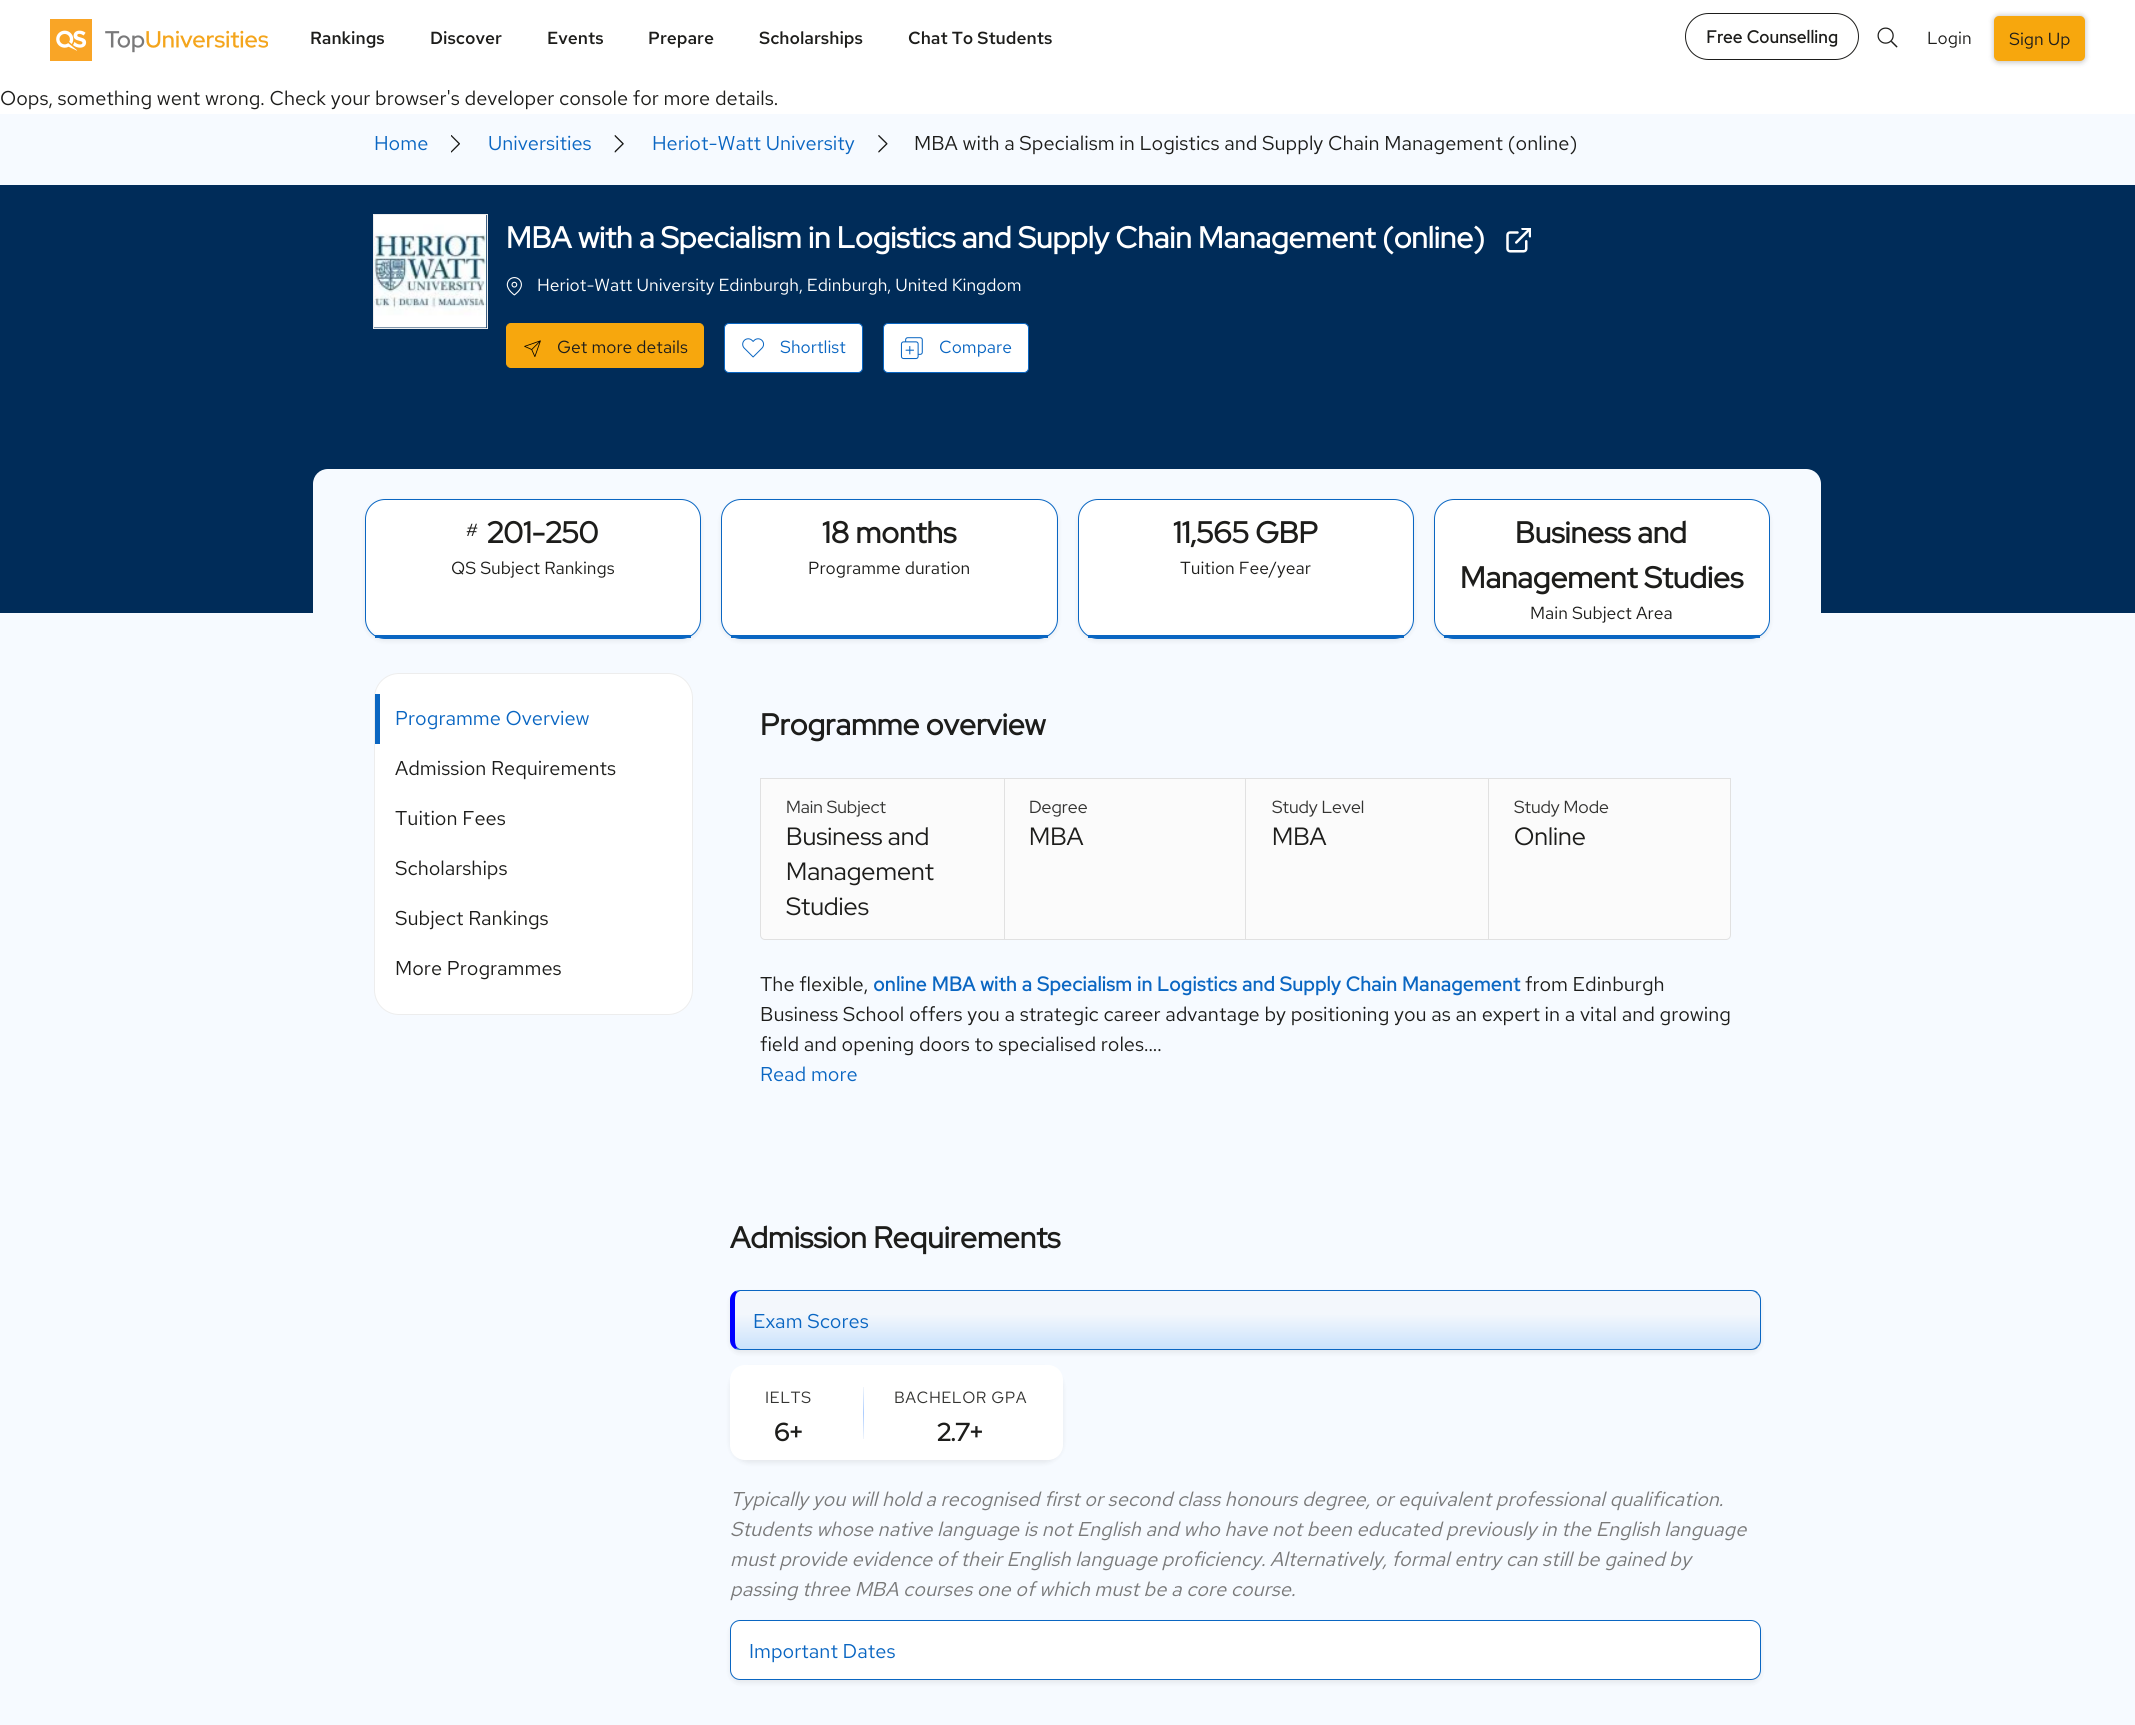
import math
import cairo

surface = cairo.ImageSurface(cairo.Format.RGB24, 2135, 1725)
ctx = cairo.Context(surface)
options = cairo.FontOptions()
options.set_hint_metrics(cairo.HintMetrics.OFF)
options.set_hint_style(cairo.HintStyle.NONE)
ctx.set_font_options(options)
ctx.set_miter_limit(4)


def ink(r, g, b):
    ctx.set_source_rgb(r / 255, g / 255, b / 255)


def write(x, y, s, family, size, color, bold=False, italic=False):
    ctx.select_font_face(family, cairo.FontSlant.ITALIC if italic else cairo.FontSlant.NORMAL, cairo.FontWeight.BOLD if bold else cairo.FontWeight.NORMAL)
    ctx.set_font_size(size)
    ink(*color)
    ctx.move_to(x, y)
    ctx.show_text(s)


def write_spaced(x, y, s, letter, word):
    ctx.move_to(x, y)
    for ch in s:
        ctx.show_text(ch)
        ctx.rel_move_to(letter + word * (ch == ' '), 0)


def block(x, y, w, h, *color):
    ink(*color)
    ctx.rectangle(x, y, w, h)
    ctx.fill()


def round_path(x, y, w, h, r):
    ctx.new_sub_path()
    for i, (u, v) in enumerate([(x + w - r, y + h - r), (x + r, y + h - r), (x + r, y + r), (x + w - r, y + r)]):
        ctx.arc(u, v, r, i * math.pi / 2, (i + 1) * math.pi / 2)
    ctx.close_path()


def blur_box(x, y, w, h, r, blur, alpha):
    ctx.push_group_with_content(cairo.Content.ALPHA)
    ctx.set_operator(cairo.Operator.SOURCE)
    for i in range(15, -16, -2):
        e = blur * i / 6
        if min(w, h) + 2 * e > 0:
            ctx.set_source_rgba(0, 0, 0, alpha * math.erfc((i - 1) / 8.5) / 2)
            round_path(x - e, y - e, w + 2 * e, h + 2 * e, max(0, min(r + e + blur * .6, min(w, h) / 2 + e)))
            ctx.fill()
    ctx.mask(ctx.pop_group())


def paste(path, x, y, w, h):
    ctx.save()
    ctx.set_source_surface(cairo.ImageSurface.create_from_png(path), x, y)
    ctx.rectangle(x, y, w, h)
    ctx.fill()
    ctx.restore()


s1 = dict(family="Red Hat Text Medium", size=17.5, color=(29, 29, 27))
s2 = dict(family="Red Hat Text", size=17.5, color=(29, 29, 27), bold=True)
s3 = dict(family="Red Hat Text", size=17.5, color=(29, 29, 27))
s4 = dict(family="Red Hat Text", size=20, color=(29, 29, 27))
s5 = dict(family="Red Hat Text", size=20, color=(10, 102, 194))
s6 = dict(family="Red Hat Display", size=30, color=(255, 255, 255), bold=True)
s7 = dict(family="Red Hat Text", size=17.5, color=(255, 255, 255))
s8 = dict(family="Red Hat Text", size=17.5, color=(10, 102, 194))
s9 = dict(family="Red Hat Display", size=30, color=(29, 29, 27), bold=True)
s10 = dict(family="Red Hat Display", size=17.5, color=(52, 52, 50))
s11 = dict(family="Red Hat Display", size=25, color=(29, 29, 27))
s12 = dict(family="Red Hat Text", size=20, color=(10, 102, 194), bold=True)
s13 = dict(family="Red Hat Display", size=25, color=(29, 29, 27), bold=True)
s14 = dict(family="Red Hat Text", size=20, color=(121, 121, 121), italic=True)

ink(255, 255, 255)
ctx.paint()
paste("pic1.png", 50, 19, 218, 42)
write(310, 44, "Rankings", **s1)
write(430, 44, "Discover", **s1)
write(547, 44, "Events", **s1)
write(648, 44, "Prepare", **s1)
write(759, 44, "Scholarships", **s1)
write(908, 44, "Chat To Students", **s1)
round_path(1685.5, 13.5, 173, 46, 23)
ctx.set_line_width(1)
ctx.stroke()
write(1706, 43, "Free Counselling", **s2)
paste("pic2.png", 1877, 27, 21, 21)
write(1927, 44, "Login", **s3)
ink(0, 0, 0)
blur_box(1993, 15, 93, 48, 6, 2.5, 0.2)
ink(247, 167, 13)
round_path(1994, 16, 91, 45, 5)
ctx.fill()
write(2009, 45, "Sign Up", **s3)
write(0, 105, "Oops, something went wrong. Check your browser's developer console for more details.", **s4)
block(0, 114, 2135, 1611, 246, 250, 255)
write(374, 150, "Home", **s5)
paste("pic3.png", 451, 135, 9, 18)
write(488, 150, "Universities", **s5)
paste("pic4.png", 614, 135, 10, 18)
write(652, 150, "Heriot-Watt University", **s5)
paste("pic5.png", 878, 135, 10, 18)
write(914, 150, "MBA with a Specialism in Logistics and Supply Chain Management (online)", **s4)
block(0, 185, 2135, 428, 0, 44, 89)
paste("pic6.png", 374, 215, 113, 113)
ctx.rectangle(373.5, 214.5, 114, 114)
ink(237, 237, 237)
ctx.stroke()
write(506, 248, "MBA with a Specialism in Logistics and Supply Chain Management (online)", **s6)
paste("pic7.png", 1506, 228, 25, 25)
paste("pic8.png", 506, 277, 16, 19)
write(537, 291, "Heriot-Watt University Edinburgh, Edinburgh, United Kingdom", **s7)
ink(247, 167, 13)
round_path(506.5, 323.5, 197, 44, 4.5)
ctx.fill_preserve()
ctx.stroke()
paste("pic9.png", 524, 340, 17, 17)
write(557, 353, "Get more details", **s3)
ink(255, 255, 255)
round_path(724.5, 323.5, 138, 49, 4.5)
ctx.fill_preserve()
ink(10, 102, 194)
ctx.stroke()
paste("pic10.png", 742, 338, 23, 20)
write(780, 353, "Shortlist", **s8)
ink(255, 255, 255)
round_path(883.5, 323.5, 145, 49, 4.5)
ctx.fill_preserve()
ink(10, 102, 194)
ctx.stroke()
paste("pic11.png", 900, 337, 23, 23)
write(939, 353, "Compare", **s8)
ink(246, 250, 255)
ctx.new_path()
ctx.move_to(328, 469)
ctx.line_to(1806, 469)
ctx.curve_to(1814.5, 469, 1821, 475.5, 1821, 484)
ctx.line_to(1821, 614)
ctx.line_to(313, 614)
ctx.line_to(313, 484)
ctx.curve_to(313, 475.5, 319.5, 469, 328, 469)
ctx.close_path()
ctx.fill()
ctx.save()
ctx.set_fill_rule(cairo.FillRule.EVEN_ODD)
ctx.new_path()
ctx.move_to(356, 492)
ctx.line_to(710, 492)
ctx.line_to(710, 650)
ctx.line_to(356, 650)
ctx.close_path()
ctx.move_to(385, 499)
ctx.line_to(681, 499)
ctx.curve_to(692, 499, 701, 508, 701, 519)
ctx.line_to(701, 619)
ctx.curve_to(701, 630, 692, 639, 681, 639)
ctx.line_to(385, 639)
ctx.curve_to(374, 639, 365, 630, 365, 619)
ctx.line_to(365, 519)
ctx.curve_to(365, 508, 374, 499, 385, 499)
ctx.close_path()
ctx.clip()
ink(29, 29, 27)
blur_box(365, 501, 336, 140, 20, 2.5, 0.08)
ctx.restore()
ink(255, 255, 255)
ctx.new_path()
ctx.move_to(385, 500)
ctx.line_to(681, 500)
ctx.curve_to(692, 500, 700, 508, 700, 519)
ctx.line_to(700, 619)
ctx.curve_to(700, 628, 692, 635, 681, 635)
ctx.line_to(385, 635)
ctx.curve_to(375, 635, 366, 628, 366, 619)
ctx.line_to(366, 519)
ctx.curve_to(366, 508, 375, 500, 385, 500)
ctx.close_path()
ctx.fill()
round_path(365.5, 499.5, 335, 139, 19.5)
ink(10, 102, 194)
ctx.stroke()
block(375, 635, 316, 3, 10, 102, 194)
write(466, 536, "#", **s3)
write(487, 543, "201-250", **s9)
write(451, 574, "QS Subject Rankings", **s3)
ctx.save()
ctx.set_fill_rule(cairo.FillRule.EVEN_ODD)
ctx.new_path()
ctx.move_to(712, 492)
ctx.line_to(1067, 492)
ctx.line_to(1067, 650)
ctx.line_to(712, 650)
ctx.close_path()
ctx.move_to(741, 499)
ctx.line_to(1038, 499)
ctx.curve_to(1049, 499, 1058, 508, 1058, 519)
ctx.line_to(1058, 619)
ctx.curve_to(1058, 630, 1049, 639, 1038, 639)
ctx.line_to(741, 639)
ctx.curve_to(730, 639, 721, 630, 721, 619)
ctx.line_to(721, 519)
ctx.curve_to(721, 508, 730, 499, 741, 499)
ctx.close_path()
ctx.clip()
ink(29, 29, 27)
blur_box(721, 501, 337, 140, 20, 2.5, 0.08)
ctx.restore()
ink(255, 255, 255)
ctx.new_path()
ctx.move_to(741, 500)
ctx.line_to(1038, 500)
ctx.curve_to(1048, 500, 1056, 508, 1056, 519)
ctx.line_to(1056, 619)
ctx.curve_to(1056, 628, 1048, 635, 1038, 635)
ctx.line_to(741, 635)
ctx.curve_to(731, 635, 722, 628, 722, 619)
ctx.line_to(722, 519)
ctx.curve_to(722, 508, 731, 500, 741, 500)
ctx.close_path()
ctx.fill()
round_path(721.5, 499.5, 336, 139, 19.5)
ink(10, 102, 194)
ctx.stroke()
block(731, 635, 317, 3, 10, 102, 194)
write(822, 543, "18 months", **s9)
write(808, 574, "Programme duration", **s3)
ctx.save()
ctx.set_fill_rule(cairo.FillRule.EVEN_ODD)
ctx.new_path()
ctx.move_to(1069, 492)
ctx.line_to(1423, 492)
ctx.line_to(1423, 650)
ctx.line_to(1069, 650)
ctx.close_path()
ctx.move_to(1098, 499)
ctx.line_to(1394, 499)
ctx.curve_to(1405, 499, 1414, 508, 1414, 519)
ctx.line_to(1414, 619)
ctx.curve_to(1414, 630, 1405, 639, 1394, 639)
ctx.line_to(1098, 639)
ctx.curve_to(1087, 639, 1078, 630, 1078, 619)
ctx.line_to(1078, 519)
ctx.curve_to(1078, 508, 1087, 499, 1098, 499)
ctx.close_path()
ctx.clip()
ink(29, 29, 27)
blur_box(1078, 501, 336, 140, 20, 2.5, 0.08)
ctx.restore()
ink(255, 255, 255)
ctx.new_path()
ctx.move_to(1098, 500)
ctx.line_to(1394, 500)
ctx.curve_to(1404, 500, 1412, 508, 1412, 519)
ctx.line_to(1412, 619)
ctx.curve_to(1412, 628, 1404, 635, 1394, 635)
ctx.line_to(1098, 635)
ctx.curve_to(1087, 635, 1079, 628, 1079, 619)
ctx.line_to(1079, 519)
ctx.curve_to(1079, 508, 1087, 500, 1098, 500)
ctx.close_path()
ctx.fill()
round_path(1078.5, 499.5, 335, 139, 19.5)
ink(10, 102, 194)
ctx.stroke()
block(1088, 635, 316, 3, 10, 102, 194)
write(1173, 543, "11,565 GBP", **s9)
write(1180, 574, "Tuition Fee/year", **s3)
ctx.save()
ctx.set_fill_rule(cairo.FillRule.EVEN_ODD)
ctx.new_path()
ctx.move_to(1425, 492)
ctx.line_to(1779, 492)
ctx.line_to(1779, 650)
ctx.line_to(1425, 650)
ctx.close_path()
ctx.move_to(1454, 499)
ctx.line_to(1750, 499)
ctx.curve_to(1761, 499, 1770, 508, 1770, 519)
ctx.line_to(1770, 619)
ctx.curve_to(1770, 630, 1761, 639, 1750, 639)
ctx.line_to(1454, 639)
ctx.curve_to(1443, 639, 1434, 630, 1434, 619)
ctx.line_to(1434, 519)
ctx.curve_to(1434, 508, 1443, 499, 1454, 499)
ctx.close_path()
ctx.clip()
ink(29, 29, 27)
blur_box(1434, 501, 336, 140, 20, 2.5, 0.08)
ctx.restore()
ink(255, 255, 255)
ctx.new_path()
ctx.move_to(1454, 500)
ctx.line_to(1750, 500)
ctx.curve_to(1760, 500, 1769, 508, 1769, 519)
ctx.line_to(1769, 619)
ctx.curve_to(1769, 628, 1760, 635, 1750, 635)
ctx.line_to(1454, 635)
ctx.curve_to(1443, 635, 1435, 628, 1435, 619)
ctx.line_to(1435, 519)
ctx.curve_to(1435, 508, 1443, 500, 1454, 500)
ctx.close_path()
ctx.fill()
round_path(1434.5, 499.5, 335, 139, 19.5)
ink(10, 102, 194)
ctx.stroke()
block(1444, 635, 316, 3, 10, 102, 194)
write(1515, 543, "Business and", **s9)
write(1460, 588, "Management Studies", **s9)
write(1530, 619, "Main Subject Area", **s3)
ink(255, 255, 255)
round_path(374.5, 673.5, 318, 341, 24.5)
ctx.fill_preserve()
ink(237, 237, 237)
ctx.stroke()
block(375, 694, 5, 50, 10, 102, 194)
write(395, 725, "Programme Overview", **s5)
write(395, 775, "Admission Requirements", **s4)
write(395, 825, "Tuition Fees", **s4)
write(395, 875, "Scholarships", **s4)
write(395, 925, "Subject Rankings", **s4)
write(395, 975, "More Programmes", **s4)
write(760, 735, "Programme overview", **s9)
ink(251, 251, 251)
ctx.new_path()
ctx.move_to(760.5, 778.5)
ctx.line_to(1730.5, 778.5)
ctx.line_to(1730.5, 935)
ctx.curve_to(1730.5, 937.5, 1728.5, 939.5, 1726, 939.5)
ctx.line_to(765, 939.5)
ctx.curve_to(762.5, 939.5, 760.5, 937.5, 760.5, 935)
ctx.close_path()
ctx.fill_preserve()
ink(225, 225, 225)
ctx.stroke()
write(786, 813, "Main Subject", **s10)
write(786, 845, "Business and", **s11)
write(786, 880, "Management", **s11)
write(786, 915, "Studies", **s11)
block(1004, 779, 1, 160, 225, 225, 225)
write(1029, 813, "Degree", **s10)
write(1029, 845, "MBA", **s11)
block(1245, 779, 1, 160, 225, 225, 225)
write(1272, 813, "Study Level", **s10)
write(1272, 845, "MBA", **s11)
block(1488, 779, 1, 160, 225, 225, 225)
write(1514, 813, "Study Mode", **s10)
write(1514, 845, "Online", **s11)
write(760, 991, "The flexible,", **s4)
write(873, 991, "online MBA with a Specialism in Logistics and Supply Chain Management", **s12)
write(1525, 991, "from Edinburgh", **s4)
write(760, 1021, "Business School offers you a strategic career advantage by positioning you as an expert in a vital and growing", **s4)
write(760, 1051, "field and opening doors to specialised roles....", **s4)
write(760, 1081, "Read more", **s5)
write(730, 1248, "Admission Requirements", **s9)
ink(29, 29, 27)
blur_box(730, 1293, 1031, 60, 10, 2.5, 0.08)
gradient = cairo.LinearGradient(1248, 1291, 1248, 1349)
gradient.add_color_stop_rgba(0.4, 0.953, 0.969, 0.988, 1)
gradient.add_color_stop_rgba(1, 0.792, 0.886, 0.988, 1)
ctx.set_source(gradient)
ctx.new_path()
ctx.move_to(740, 1291)
ctx.line_to(1751, 1291)
ctx.curve_to(1756, 1291, 1760, 1295, 1760, 1300)
ctx.line_to(1760, 1340)
ctx.curve_to(1760, 1345, 1756, 1349, 1751, 1349)
ctx.line_to(740, 1349)
ctx.curve_to(737, 1349, 735, 1345, 735, 1340)
ctx.line_to(735, 1300)
ctx.curve_to(735, 1295, 737, 1291, 740, 1291)
ctx.close_path()
ctx.fill()
ink(10, 102, 194)
ctx.new_path()
ctx.move_to(740, 1290)
ctx.line_to(735, 1291)
ctx.line_to(738, 1292)
ctx.line_to(740, 1291)
ctx.line_to(1751, 1291)
ctx.curve_to(1753, 1291, 1756, 1292, 1757, 1294)
ctx.line_to(1758, 1293)
ctx.curve_to(1757, 1291, 1754, 1290, 1751, 1290)
ctx.close_path()
ctx.fill()
ctx.new_path()
ctx.move_to(1758, 1293)
ctx.curve_to(1760, 1295, 1761, 1297, 1761, 1300)
ctx.line_to(1761, 1340)
ctx.curve_to(1761, 1343, 1760, 1345, 1758, 1347)
ctx.line_to(1757, 1346)
ctx.curve_to(1759, 1345, 1760, 1342, 1760, 1340)
ctx.line_to(1760, 1300)
ctx.curve_to(1760, 1298, 1759, 1295, 1757, 1294)
ctx.close_path()
ctx.fill()
ctx.new_path()
ctx.move_to(740, 1350)
ctx.line_to(1751, 1350)
ctx.curve_to(1754, 1350, 1757, 1349, 1758, 1347)
ctx.line_to(1757, 1346)
ctx.curve_to(1756, 1348, 1753, 1349, 1751, 1349)
ctx.line_to(740, 1349)
ctx.line_to(738, 1348)
ctx.line_to(735, 1349)
ctx.close_path()
ctx.fill()
ink(0, 0, 255)
ctx.new_path()
ctx.move_to(730, 1300)
ctx.line_to(730, 1340)
ctx.curve_to(730, 1344, 732, 1347, 735, 1349)
ctx.line_to(738, 1348)
ctx.curve_to(736, 1347, 735, 1344, 735, 1340)
ctx.line_to(735, 1300)
ctx.curve_to(735, 1296, 736, 1293, 738, 1292)
ctx.line_to(735, 1291)
ctx.curve_to(732, 1293, 730, 1296, 730, 1300)
ctx.close_path()
ctx.fill()
write(753, 1328, "Exam Scores", **s5)
ink(29, 29, 27)
blur_box(730, 1368, 333, 95, 20, 2.5, 0.08)
ink(255, 255, 255)
round_path(730, 1365, 333, 95, 20)
ctx.fill()
round_path(730, 1365, 116, 95, 15)
ctx.fill()
ctx.set_font_size(16.25)
ink(52, 52, 50)
write_spaced(765, 1403, "IELTS", 0.5, 0)
ink(255, 255, 255)
round_path(859, 1365, 204, 95, 15)
ctx.fill()
gradient = cairo.LinearGradient(863, 1387, 863, 1439)
gradient.add_color_stop_rgba(0, 0.945, 0.961, 0.984, 1)
gradient.add_color_stop_rgba(0.5, 0.675, 0.804, 1, 1)
gradient.add_color_stop_rgba(1, 0.945, 0.961, 0.984, 1)
ctx.set_source(gradient)
ctx.rectangle(863, 1387, 1, 52)
ctx.fill()
write(774, 1441, "6+", **s13)
ctx.select_font_face("Red Hat Text")
ctx.set_font_size(16.25)
ink(52, 52, 50)
write_spaced(894, 1403, "BACHELOR GPA", 0.5, 0)
write(937, 1441, "2.7+", **s13)
write(730, 1506, "Typically you will hold a recognised first or second class honours degree, or equivalent professional qualification.", **s14)
write(730, 1536, "Students whose native language is not English and who have not been educated previously in the English language", **s14)
write(730, 1566, "must provide evidence of their English language proficiency. Alternatively, formal entry can still be gained by", **s14)
write(730, 1596, "passing three MBA courses one of which must be a core course.", **s14)
ink(29, 29, 27)
blur_box(730, 1623, 1031, 60, 10, 2.5, 0.08)
ink(255, 255, 255)
round_path(730.5, 1620.5, 1030, 59, 9.5)
ctx.fill_preserve()
ink(10, 102, 194)
ctx.stroke()
write(749, 1658, "Important Dates", **s5)
surface.write_to_png("screenshot.png")
